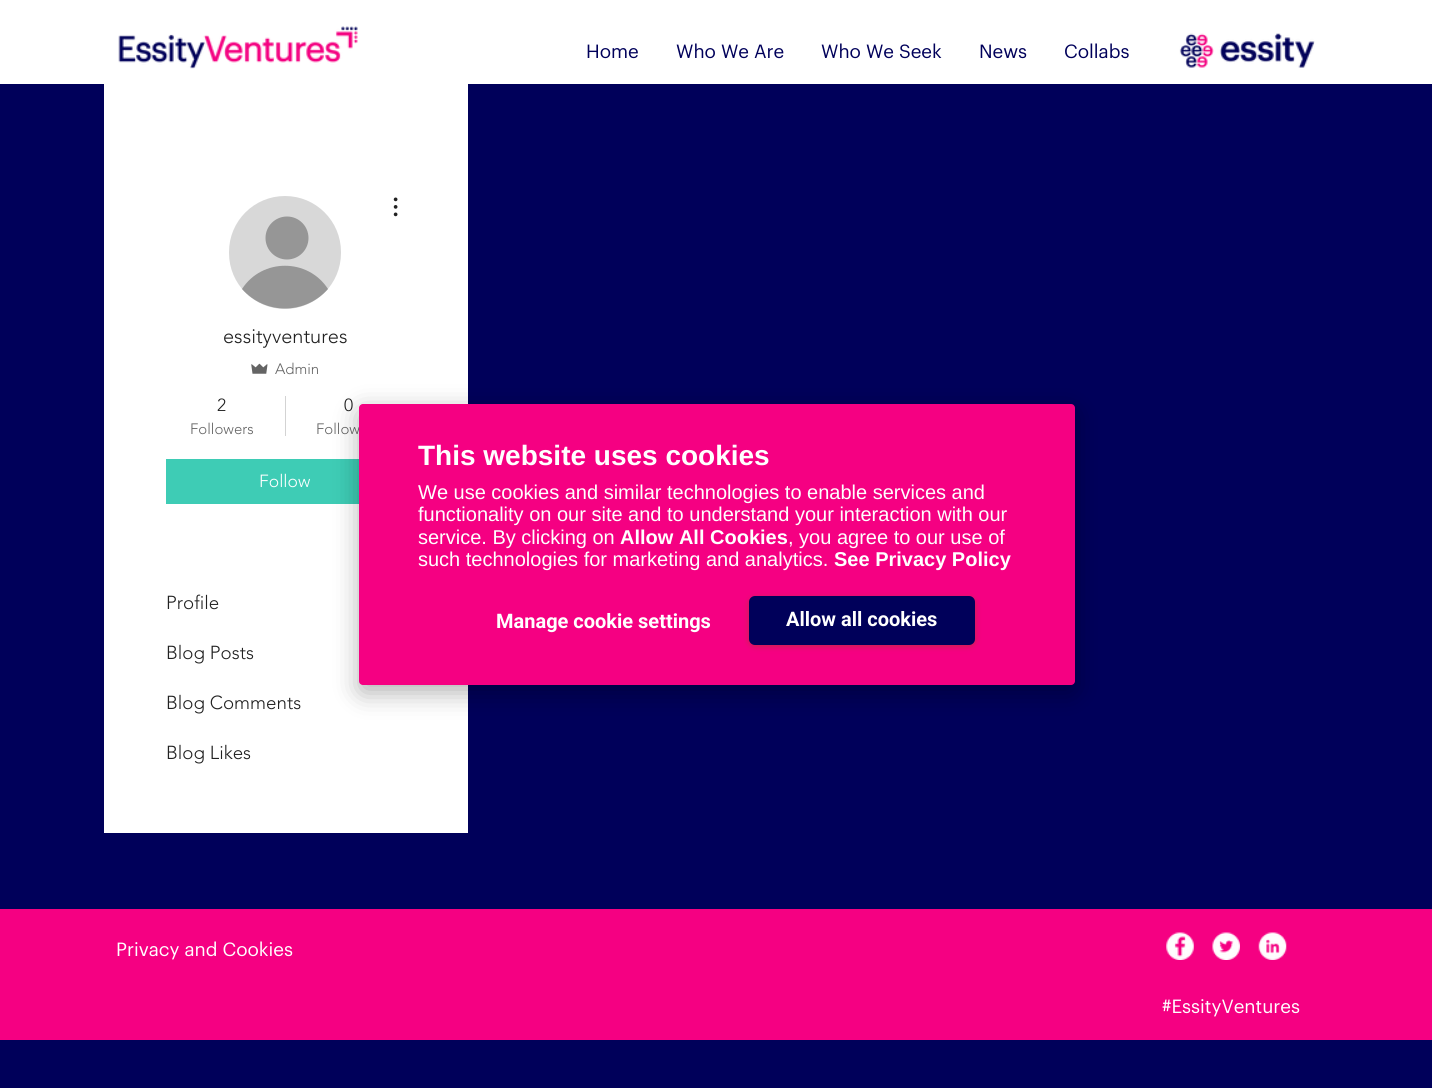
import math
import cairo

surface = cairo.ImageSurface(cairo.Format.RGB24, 1432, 1088)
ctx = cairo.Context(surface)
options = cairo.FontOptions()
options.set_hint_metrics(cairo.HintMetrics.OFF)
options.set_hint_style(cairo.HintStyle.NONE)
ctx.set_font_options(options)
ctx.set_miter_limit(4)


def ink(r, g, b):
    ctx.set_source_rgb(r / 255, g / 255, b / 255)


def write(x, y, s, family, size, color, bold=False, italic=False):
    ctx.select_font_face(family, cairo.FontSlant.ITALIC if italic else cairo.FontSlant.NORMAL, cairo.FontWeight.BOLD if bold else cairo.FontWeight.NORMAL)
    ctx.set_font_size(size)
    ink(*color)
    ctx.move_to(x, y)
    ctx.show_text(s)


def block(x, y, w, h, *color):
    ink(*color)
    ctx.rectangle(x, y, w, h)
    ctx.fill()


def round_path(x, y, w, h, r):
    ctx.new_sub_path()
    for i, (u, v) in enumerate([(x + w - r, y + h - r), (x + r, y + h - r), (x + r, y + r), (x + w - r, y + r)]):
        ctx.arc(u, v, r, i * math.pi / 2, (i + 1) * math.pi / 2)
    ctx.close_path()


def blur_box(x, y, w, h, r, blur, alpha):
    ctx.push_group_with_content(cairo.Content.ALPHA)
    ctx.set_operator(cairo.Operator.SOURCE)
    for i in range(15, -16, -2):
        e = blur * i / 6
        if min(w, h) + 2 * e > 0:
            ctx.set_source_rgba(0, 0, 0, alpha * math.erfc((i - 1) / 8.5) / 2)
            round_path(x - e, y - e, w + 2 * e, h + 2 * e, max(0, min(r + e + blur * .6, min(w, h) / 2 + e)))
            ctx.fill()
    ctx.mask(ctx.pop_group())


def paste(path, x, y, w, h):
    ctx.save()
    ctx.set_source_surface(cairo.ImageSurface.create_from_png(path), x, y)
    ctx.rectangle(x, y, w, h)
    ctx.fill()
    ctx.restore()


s1 = dict(family="Graphik", size=18.75, color=(0, 0, 90))
s2 = dict(family="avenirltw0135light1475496 Light", size=20, color=(33, 33, 33))
s3 = dict(family="avenirltw0135light1475496 Light", size=15, color=(100, 100, 100))
s4 = dict(family="avenirltw0135light1475496 Light", size=17.5, color=(33, 33, 33))
s5 = dict(family="avenirltw0135light1475496 Light", size=17.5, color=(255, 255, 255))
s6 = dict(family="avenirltw0135light1475496 Light", size=18.75, color=(33, 33, 33))
s7 = dict(family="Graphik", size=18.75, color=(255, 255, 255))
s8 = dict(family="Liberation Sans", size=28, color=(255, 255, 255), bold=True)
s9 = dict(family="Liberation Sans", size=20, color=(255, 255, 255))
s10 = dict(family="Liberation Sans", size=20, color=(255, 255, 255), bold=True)
s11 = dict(family="Roboto", size=20, color=(255, 255, 255), bold=True)

ink(0, 0, 90)
ctx.paint()
block(0, 0, 1432, 84, 255, 255, 255)
paste("pic1.png", 118, 26, 240, 43)
write(586, 58, "Home", **s1)
write(676, 58, "Who We Are", **s1)
write(821, 58, "Who We Seek", **s1)
write(979, 58, "News", **s1)
write(1064, 58, "Collabs", **s1)
paste("pic2.png", 1179, 33, 136, 35)
block(104, 84, 364, 749, 255, 255, 255)
ink(216, 216, 216)
round_path(229, 196, 112, 113, 56)
ctx.fill()
ink(150, 150, 150)
ctx.arc(287, 238, 21.5, 0, 2 * math.pi)
ctx.fill()
ctx.new_path()
ctx.move_to(328, 289)
ctx.curve_to(305, 315, 265, 315, 242, 289)
ctx.curve_to(262, 258, 308, 258, 328, 289)
ctx.close_path()
ctx.fill()
paste("pic3.png", 393, 197, 5, 20)
write(223, 343, "essityventures", **s2)
paste("pic4.png", 251, 363, 17, 11)
write(275, 374, "Admin", **s3)
write(217, 411, "2", **s4)
write(190, 434, "Followers", **s3)
block(285, 396, 1, 40, 211, 211, 211)
write(344, 411, "0", **s4)
write(316, 434, "Follow", **s3)
block(166, 459, 193, 45, 62, 204, 181)
write(259, 487, "Follow", **s5)
write(166, 609, "Profile", **s6)
write(166, 659, "Blog Posts", **s6)
write(166, 709, "Blog Comments", **s6)
write(166, 759, "Blog Likes", **s6)
block(0, 909, 1432, 131, 245, 0, 130)
write(116, 956, "Privacy and Cookies", **s7)
paste("pic5.png", 1166, 932, 28, 28)
paste("pic6.png", 1212, 932, 28, 28)
paste("pic7.png", 1258, 932, 29, 28)
write(1162, 1013, "#EssityVentures", **s7)
ink(0, 0, 0)
blur_box(359, 411, 716, 282, 4, 12.5, 0.3)
ink(245, 0, 130)
round_path(359, 404, 716, 281, 4)
ctx.fill()
write(418, 465, "This website uses cookies", **s8)
write(418, 499, "We use cookies and similar technologies to enable services and", **s9)
write(418, 521, "functionality on our site and to understand your interaction with our", **s9)
write(418, 544, "service. By clicking on", **s9)
write(620, 544, "Allow All Cookies", **s10)
write(788, 544, ", you agree to our use of", **s9)
write(418, 566, "such technologies for marketing and analytics.", **s9)
write(834, 566, "See Privacy Policy", **s10)
write(496, 628, "Manage cookie settings", **s11)
ink(139, 83, 0)
blur_box(749, 598, 226, 48, 6, 3, 0.5)
ink(0, 0, 90)
round_path(749, 596, 226, 49, 6)
ctx.fill()
write(786, 626, "Allow all cookies", **s11)
surface.write_to_png("screenshot.png")
